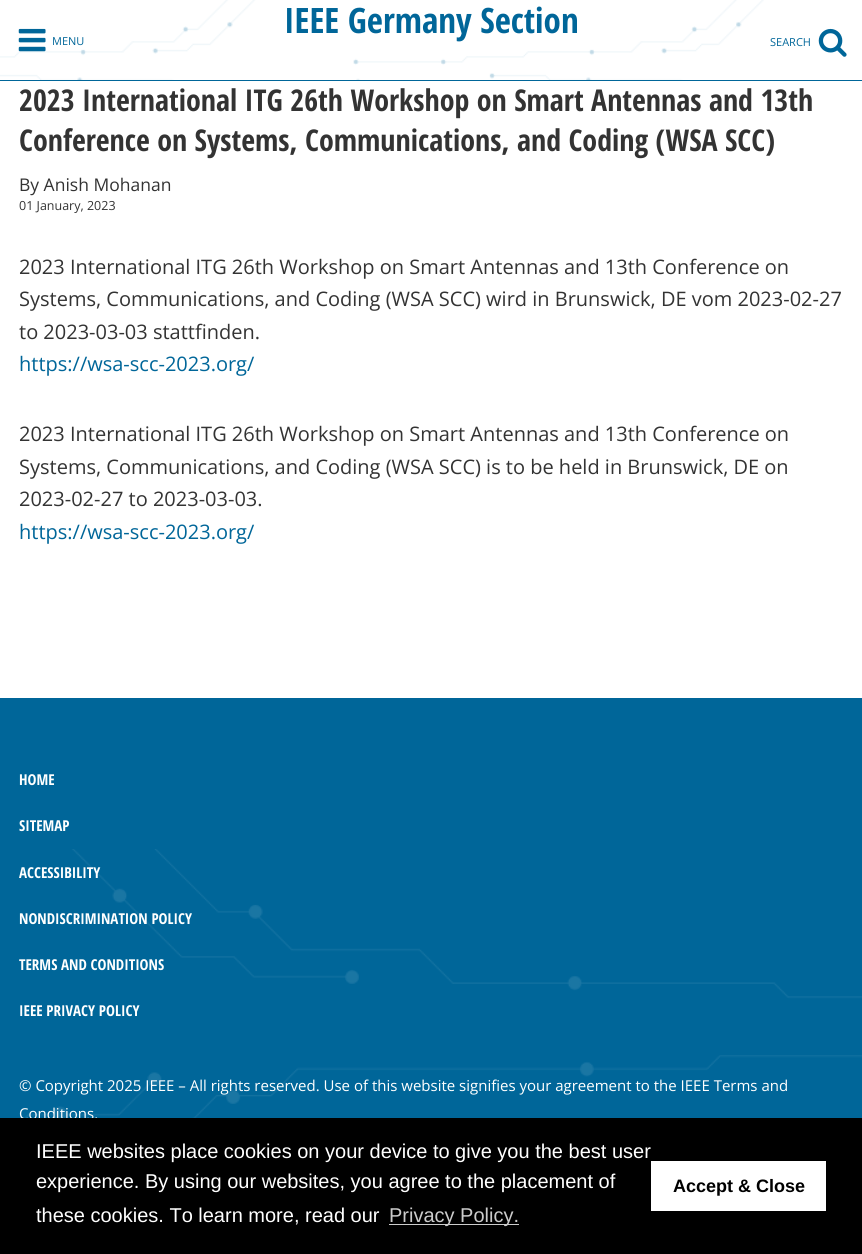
import math
import cairo

surface = cairo.ImageSurface(cairo.Format.RGB24, 862, 1254)
ctx = cairo.Context(surface)
options = cairo.FontOptions()
options.set_hint_metrics(cairo.HintMetrics.OFF)
options.set_hint_style(cairo.HintStyle.NONE)
ctx.set_font_options(options)
ctx.set_miter_limit(4)


def ink(r, g, b):
    ctx.set_source_rgb(r / 255, g / 255, b / 255)


def write(x, y, s, family, size, color, bold=False, italic=False):
    ctx.select_font_face(family, cairo.FontSlant.ITALIC if italic else cairo.FontSlant.NORMAL, cairo.FontWeight.BOLD if bold else cairo.FontWeight.NORMAL)
    ctx.set_font_size(size)
    ink(*color)
    ctx.move_to(x, y)
    ctx.show_text(s)


def block(x, y, w, h, *color):
    ink(*color)
    ctx.rectangle(x, y, w, h)
    ctx.fill()


def paste(path, x, y, w, h):
    ctx.save()
    ctx.set_source_surface(cairo.ImageSurface.create_from_png(path), x, y)
    ctx.rectangle(x, y, w, h)
    ctx.fill()
    ctx.restore()


s1 = dict(family="Open Sans", size=11, color=(0, 102, 153))
s2 = dict(family="Open Sans Condensed", size=35, color=(0, 102, 153), bold=True)
s3 = dict(family="Open Sans Condensed", size=30, color=(51, 51, 51), bold=True)
s4 = dict(family="Open Sans", size=17.5, color=(51, 51, 51))
s5 = dict(family="Open Sans", size=12.5, color=(51, 51, 51))
s6 = dict(family="Open Sans", size=20, color=(51, 51, 51))
s7 = dict(family="Open Sans", size=20, color=(0, 102, 153))
s8 = dict(family="Open Sans Condensed", size=15, color=(255, 255, 255), bold=True)
s9 = dict(family="Open Sans", size=15, color=(255, 255, 255))
s10 = dict(family="Liberation Sans", size=20, color=(255, 255, 255))
s11 = dict(family="Liberation Sans", size=20, color=(204, 204, 204))
s12 = dict(family="Liberation Sans", size=18, color=(0, 0, 0), bold=True)

ink(255, 255, 255)
ctx.paint()
paste("pic1.png", 0, 0, 764, 80)
ink(0, 102, 153)
ctx.new_path()
ctx.move_to(0, 80)
ctx.line_to(0, 81)
ctx.line_to(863, 81)
ctx.line_to(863, 1)
ctx.line_to(862, 1)
ctx.line_to(862, 80)
ctx.close_path()
ctx.fill()
paste("pic2.png", 18, 28, 28, 24)
write(52, 45, "MENU", **s1)
write(284, 33, "IEEE Germany Section", **s2)
write(770, 46, "SEARCH", **s1)
paste("pic3.png", 818, 28, 29, 29)
write(19, 111, "2023 International ITG 26th Workshop on Smart Antennas and 13th", **s3)
write(19, 151, "Conference on Systems, Communications, and Coding (WSA SCC)", **s3)
write(19, 191, "By Anish Mohanan", **s4)
write(19, 210, "01 January, 2023", **s5)
write(19, 274, "2023 International ITG 26th Workshop on Smart Antennas and 13th Conference on", **s6)
write(19, 306, "Systems, Communications, and Coding (WSA SCC) wird in Brunswick, DE vom 2023-02-27", **s6)
write(19, 339, "to 2023-03-03 stattfinden.", **s6)
write(19, 371, "https://wsa-scc-2023.org/", **s7)
write(19, 441, "2023 International ITG 26th Workshop on Smart Antennas and 13th Conference on", **s6)
write(19, 474, "Systems, Communications, and Coding (WSA SCC) is to be held in Brunswick, DE on", **s6)
write(19, 506, "2023-02-27 to 2023-03-03.", **s6)
write(19, 539, "https://wsa-scc-2023.org/", **s7)
block(0, 698, 862, 420, 0, 102, 153)
paste("pic4.png", 24, 849, 838, 269)
write(19, 785, "HOME", **s8)
write(19, 831, "SITEMAP", **s8)
write(19, 878, "ACCESSIBILITY", **s8)
write(19, 924, "NONDISCRIMINATION POLICY", **s8)
write(19, 970, "TERMS AND CONDITIONS", **s8)
write(19, 1016, "IEEE PRIVACY POLICY", **s8)
write(19, 1091, "© Copyright 2025 IEEE – All rights reserved. Use of this website signifies your agreement to the IEEE Terms and", **s9)
write(19, 1119, "Conditions.", **s9)
block(0, 1118, 862, 136, 0, 0, 0)
write(36, 1158, "IEEE websites place cookies on your device to give you the best user", **s10)
write(36, 1188, "experience. By using our websites, you agree to the placement of", **s10)
write(36, 1222, "these cookies. To learn more, read our", **s10)
block(389, 1224, 130, 1, 204, 204, 204)
write(389, 1222, "Privacy Policy.", **s11)
block(651, 1161, 175, 50, 255, 255, 255)
write(673, 1192, "Accept & Close", **s12)
surface.write_to_png("screenshot.png")
